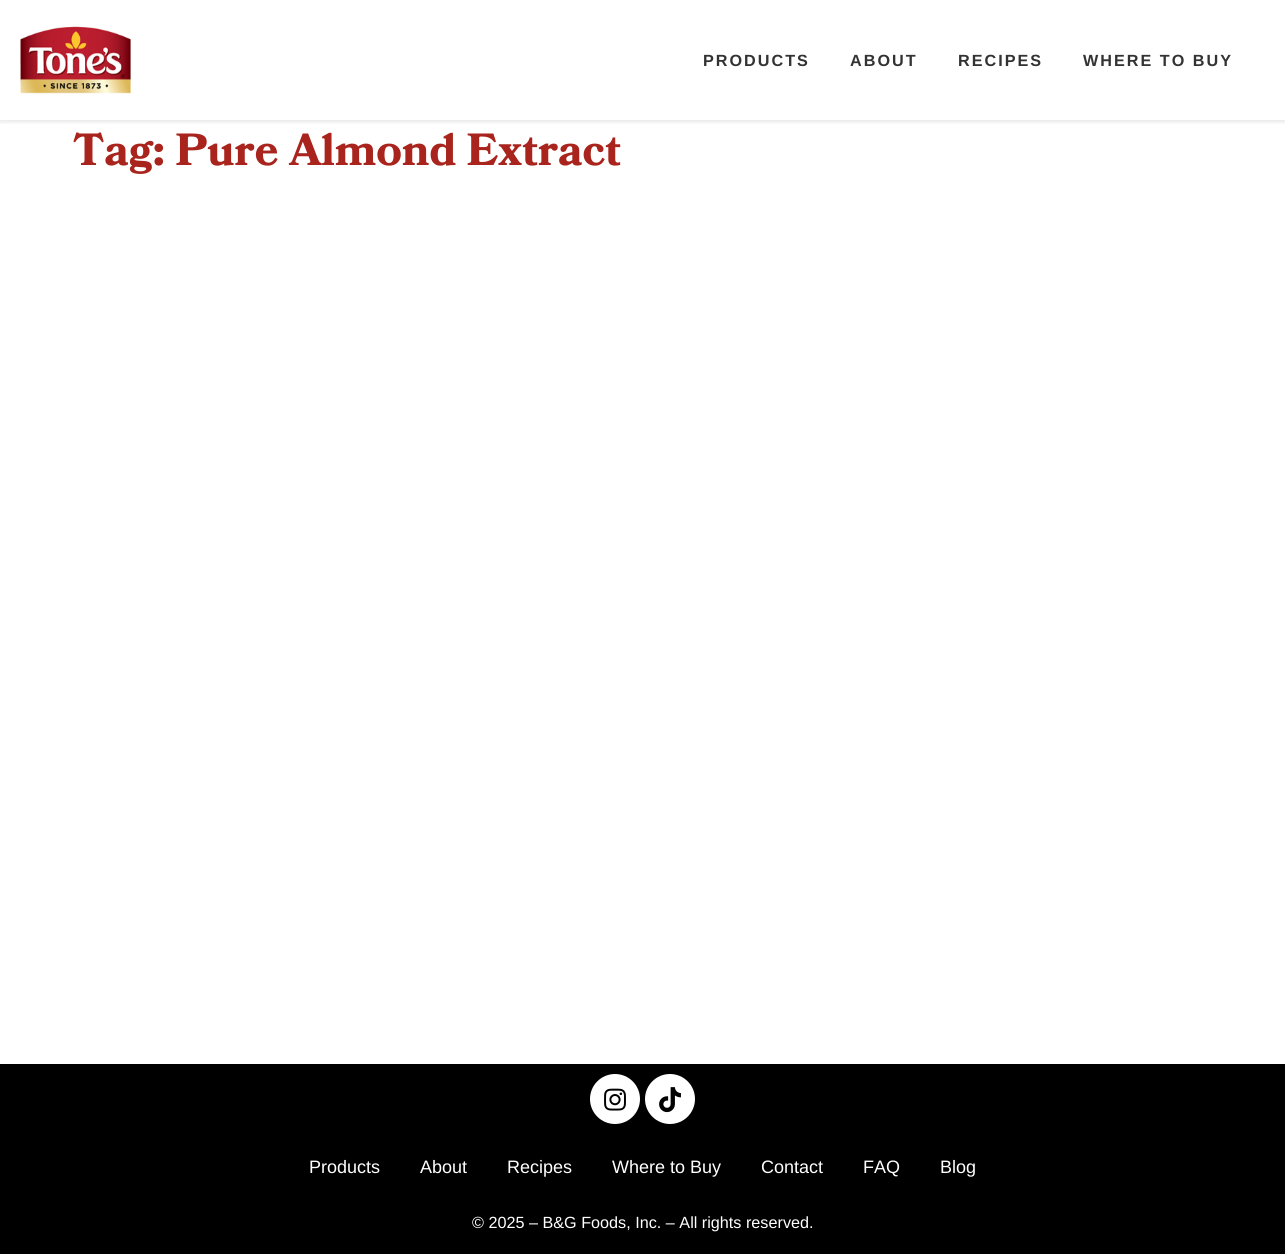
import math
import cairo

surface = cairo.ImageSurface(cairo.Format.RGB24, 1285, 1254)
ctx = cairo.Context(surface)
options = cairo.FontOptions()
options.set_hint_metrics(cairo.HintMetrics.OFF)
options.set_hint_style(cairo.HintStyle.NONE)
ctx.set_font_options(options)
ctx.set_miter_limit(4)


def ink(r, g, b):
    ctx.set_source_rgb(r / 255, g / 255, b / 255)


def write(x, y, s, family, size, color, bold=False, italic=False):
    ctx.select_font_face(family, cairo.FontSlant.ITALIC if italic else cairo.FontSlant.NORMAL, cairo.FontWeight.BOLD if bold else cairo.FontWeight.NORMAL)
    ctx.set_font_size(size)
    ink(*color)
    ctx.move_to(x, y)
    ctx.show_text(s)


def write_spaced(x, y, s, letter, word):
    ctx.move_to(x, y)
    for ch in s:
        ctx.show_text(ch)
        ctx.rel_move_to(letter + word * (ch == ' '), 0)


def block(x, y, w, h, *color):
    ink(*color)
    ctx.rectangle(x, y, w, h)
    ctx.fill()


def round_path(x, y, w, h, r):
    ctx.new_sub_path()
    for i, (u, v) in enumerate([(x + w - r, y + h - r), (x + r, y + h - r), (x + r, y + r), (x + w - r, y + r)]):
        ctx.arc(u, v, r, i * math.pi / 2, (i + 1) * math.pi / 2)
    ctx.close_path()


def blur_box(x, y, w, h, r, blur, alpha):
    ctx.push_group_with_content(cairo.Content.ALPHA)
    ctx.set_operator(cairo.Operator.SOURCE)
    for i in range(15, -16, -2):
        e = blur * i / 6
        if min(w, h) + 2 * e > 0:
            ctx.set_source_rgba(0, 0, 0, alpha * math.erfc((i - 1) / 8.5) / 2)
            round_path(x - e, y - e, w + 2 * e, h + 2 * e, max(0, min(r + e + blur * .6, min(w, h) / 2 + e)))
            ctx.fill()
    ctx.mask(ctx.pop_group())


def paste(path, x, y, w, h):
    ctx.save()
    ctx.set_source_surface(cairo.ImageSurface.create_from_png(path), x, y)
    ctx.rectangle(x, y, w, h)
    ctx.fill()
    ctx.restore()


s1 = dict(family="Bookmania", size=45, color=(169, 36, 29), bold=True)
s2 = dict(family="Liberation Sans", size=18, color=(255, 255, 255))
s3 = dict(family="Liberation Sans", size=16.2, color=(255, 255, 255))

ink(255, 255, 255)
ctx.paint()
ctx.save()
ctx.rectangle(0, 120, 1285, 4)
ctx.clip()
ink(0, 0, 0)
blur_box(0, 2, 1285, 120, 0, 2.5, 0.1)
ctx.restore()
paste("pic1.png", 20, 26, 111, 68)
ctx.select_font_face("Liberation Sans", cairo.FontSlant.NORMAL, cairo.FontWeight.BOLD)
ctx.set_font_size(16.2)
ink(51, 51, 51)
write_spaced(703, 66, "PRODUCTS", 2, 0)
write_spaced(850, 66, "ABOUT", 2, 0)
write_spaced(958, 66, "RECIPES", 2, 0)
write_spaced(1083, 66, "WHERE TO BUY", 2, 0)
write(73, 165, "Tag: Pure Almond Extract", **s1)
block(0, 1064, 1285, 190, 0, 0, 0)
ink(255, 255, 255)
ctx.new_path()
ctx.arc(615, 1099, 25, 0, 2 * math.pi)
ctx.fill()
paste("pic2.png", 604, 1088, 22, 23)
ctx.arc(670, 1099, 25, 0, 2 * math.pi)
ctx.fill()
paste("pic3.png", 659, 1087, 22, 26)
write(309, 1173, "Products", **s2)
write(420, 1173, "About", **s2)
write(507, 1173, "Recipes", **s2)
write(612, 1173, "Where to Buy", **s2)
write(761, 1173, "Contact", **s2)
write(863, 1173, "FAQ", **s2)
write(940, 1173, "Blog", **s2)
write(472, 1228, "© 2025 – B&G Foods, Inc. – All rights reserved.", **s3)
surface.write_to_png("screenshot.png")
